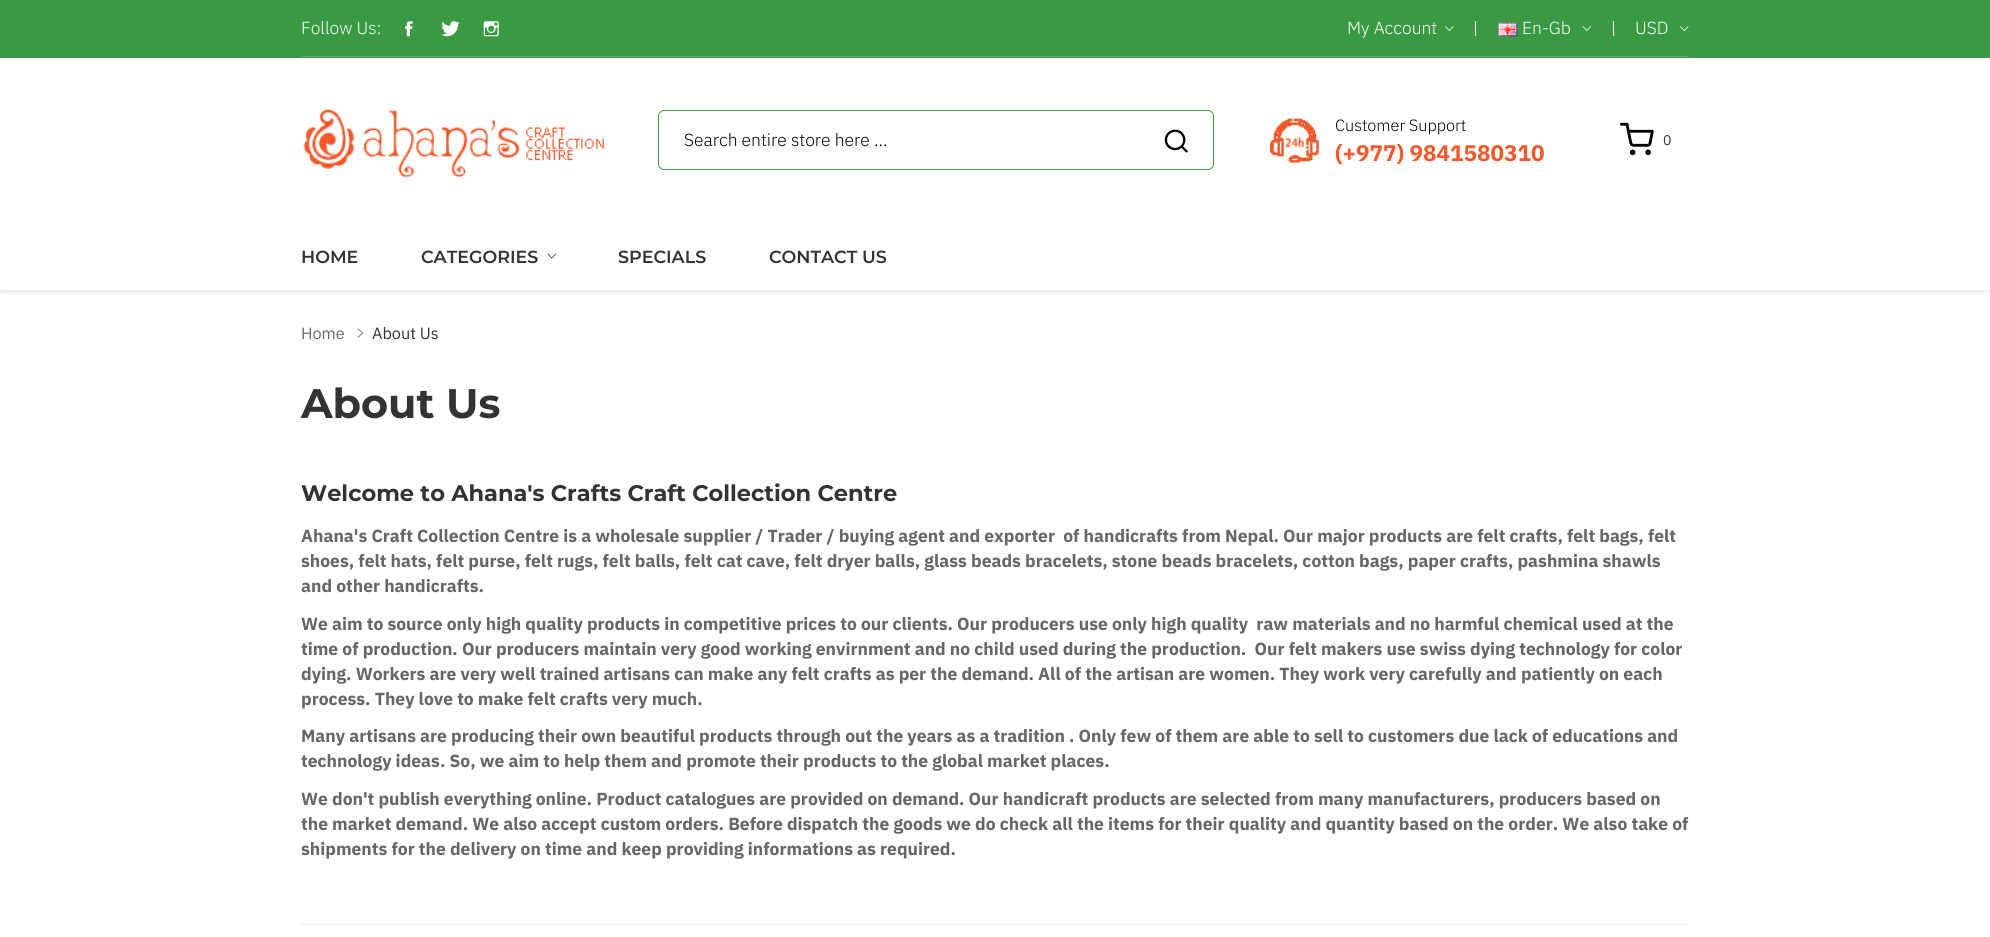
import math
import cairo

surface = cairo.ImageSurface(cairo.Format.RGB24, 1990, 937)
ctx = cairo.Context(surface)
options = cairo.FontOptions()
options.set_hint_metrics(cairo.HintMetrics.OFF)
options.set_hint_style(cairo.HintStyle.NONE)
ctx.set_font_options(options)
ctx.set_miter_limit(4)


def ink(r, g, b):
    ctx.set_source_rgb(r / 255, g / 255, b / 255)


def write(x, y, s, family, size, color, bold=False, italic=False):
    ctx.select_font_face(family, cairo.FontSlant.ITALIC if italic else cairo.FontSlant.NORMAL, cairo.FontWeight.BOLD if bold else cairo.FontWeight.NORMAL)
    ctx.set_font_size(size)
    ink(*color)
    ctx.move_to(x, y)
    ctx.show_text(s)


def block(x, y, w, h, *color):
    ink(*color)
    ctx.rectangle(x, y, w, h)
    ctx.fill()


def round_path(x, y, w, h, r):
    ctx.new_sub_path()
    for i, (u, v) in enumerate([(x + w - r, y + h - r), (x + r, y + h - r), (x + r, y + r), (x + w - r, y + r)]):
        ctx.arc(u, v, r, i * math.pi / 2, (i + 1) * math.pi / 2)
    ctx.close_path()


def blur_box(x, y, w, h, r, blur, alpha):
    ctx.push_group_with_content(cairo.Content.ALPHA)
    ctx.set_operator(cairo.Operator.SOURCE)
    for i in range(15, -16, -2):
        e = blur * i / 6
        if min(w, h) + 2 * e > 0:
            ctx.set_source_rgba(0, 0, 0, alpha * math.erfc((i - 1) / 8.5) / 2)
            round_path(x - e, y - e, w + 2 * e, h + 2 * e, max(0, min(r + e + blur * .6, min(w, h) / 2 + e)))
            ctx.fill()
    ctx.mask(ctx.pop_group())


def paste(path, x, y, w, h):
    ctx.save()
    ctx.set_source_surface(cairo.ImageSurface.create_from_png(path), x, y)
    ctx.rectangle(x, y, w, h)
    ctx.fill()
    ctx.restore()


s1 = dict(family="IBM Plex Sans Light", size=17.5, color=(255, 255, 255))
s2 = dict(family="IBM Plex Sans Light", size=17.5, color=(0, 0, 0))
s3 = dict(family="IBM Plex Sans Light", size=16.25, color=(0, 0, 0))
s4 = dict(family="IBM Plex Sans", size=22.5, color=(241, 89, 42), bold=True)
s5 = dict(family="IBM Plex Sans", size=14, color=(51, 51, 51))
s6 = dict(family="Montserrat SemiBold", size=17.5, color=(51, 51, 51))
s7 = dict(family="IBM Plex Sans", size=16.25, color=(102, 102, 102))
s8 = dict(family="IBM Plex Sans", size=16.25, color=(51, 51, 51))
s9 = dict(family="Montserrat", size=41.25, color=(51, 51, 51), bold=True)
s10 = dict(family="Montserrat", size=22.5, color=(51, 51, 51), bold=True)
s11 = dict(family="IBM Plex Sans", size=17.5, color=(102, 102, 102), bold=True)

ink(255, 255, 255)
ctx.paint()
block(0, 0, 1990, 58, 58, 153, 67)
block(301, 56, 1388, 1, 91, 170, 99)
write(301, 34, "Follow Us:", **s1)
paste("pic1.png", 405, 21, 8, 16)
paste("pic2.png", 441, 21, 19, 16)
paste("pic3.png", 483, 21, 16, 16)
write(1347, 34, "My Account", **s1)
paste("pic4.png", 1445, 26, 9, 6)
block(1475, 21, 1, 15, 255, 255, 255)
paste("pic5.png", 1497, 22, 21, 15)
write(1522, 34, "En-Gb", **s1)
paste("pic6.png", 1582, 26, 9, 6)
block(1613, 21, 1, 15, 255, 255, 255)
write(1635, 34, "USD", **s1)
paste("pic4.png", 1680, 26, 9, 6)
round_path(658.5, 110.5, 555, 59, 5.5)
ink(58, 153, 67)
ctx.set_line_width(1)
ctx.stroke()
write(684, 146, "Search entire store here ...", **s2)
paste("pic7.png", 1164, 129, 24, 24)
paste("pic8.png", 1270, 118, 49, 45)
write(1335, 131, "Customer Support", **s3)
write(1335, 161, "(+977) 9841580310", **s4)
paste("pic9.png", 303, 108, 301, 70)
paste("pic10.png", 1620, 122, 34, 34)
write(1663, 145, "0", **s5)
ctx.save()
ctx.rectangle(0, 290, 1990, 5)
ctx.clip()
ink(0, 0, 0)
blur_box(0, 225, 1990, 68, 0, 3, 0.08)
ctx.restore()
write(301, 263, "HOME", **s6)
write(421, 263, "CATEGORIES", **s6)
paste("pic11.png", 547, 253, 9, 6)
write(618, 263, "SPECIALS", **s6)
write(769, 263, "CONTACT US", **s6)
write(301, 339, "Home", **s7)
paste("pic12.png", 357, 328, 6, 10)
write(372, 339, "About Us", **s8)
write(301, 418, "About Us", **s9)
write(301, 501, "Welcome to Ahana's Crafts Craft Collection Centre", **s10)
write(301, 542, "Ahana's Craft Collection Centre is a wholesale supplier / Trader / buying agent and exporter  of handicrafts from Nepal. Our major products are felt crafts, felt bags, felt", **s11)
write(301, 567, "shoes, felt hats, felt purse, felt rugs, felt balls, felt cat cave, felt dryer balls, glass beads bracelets, stone beads bracelets, cotton bags, paper crafts, pashmina shawls", **s11)
write(301, 592, "and other handicrafts.", **s11)
write(301, 630, "We aim to source only high quality products in competitive prices to our clients. Our producers use only high quality  raw materials and no harmful chemical used at the", **s11)
write(301, 655, "time of production. Our producers maintain very good working envirnment and no child used during the production.  Our felt makers use swiss dying technology for color", **s11)
write(301, 680, "dying. Workers are very well trained artisans can make any felt crafts as per the demand. All of the artisan are women. They work very carefully and patiently on each", **s11)
write(301, 705, "process. They love to make felt crafts very much.", **s11)
write(301, 742, "Many artisans are producing their own beautiful products through out the years as a tradition . Only few of them are able to sell to customers due lack of educations and", **s11)
write(301, 767, "technology ideas. So, we aim to help them and promote their products to the global market places.", **s11)
write(301, 805, "We don't publish everything online. Product catalogues are provided on demand. Our handicraft products are selected from many manufacturers, producers based on", **s11)
write(301, 830, "the market demand. We also accept custom orders. Before dispatch the goods we do check all the items for their quality and quantity based on the order. We also take of", **s11)
write(301, 855, "shipments for the delivery on time and keep providing informations as required.", **s11)
block(301, 924, 1388, 1, 237, 237, 237)
surface.write_to_png("screenshot.png")
